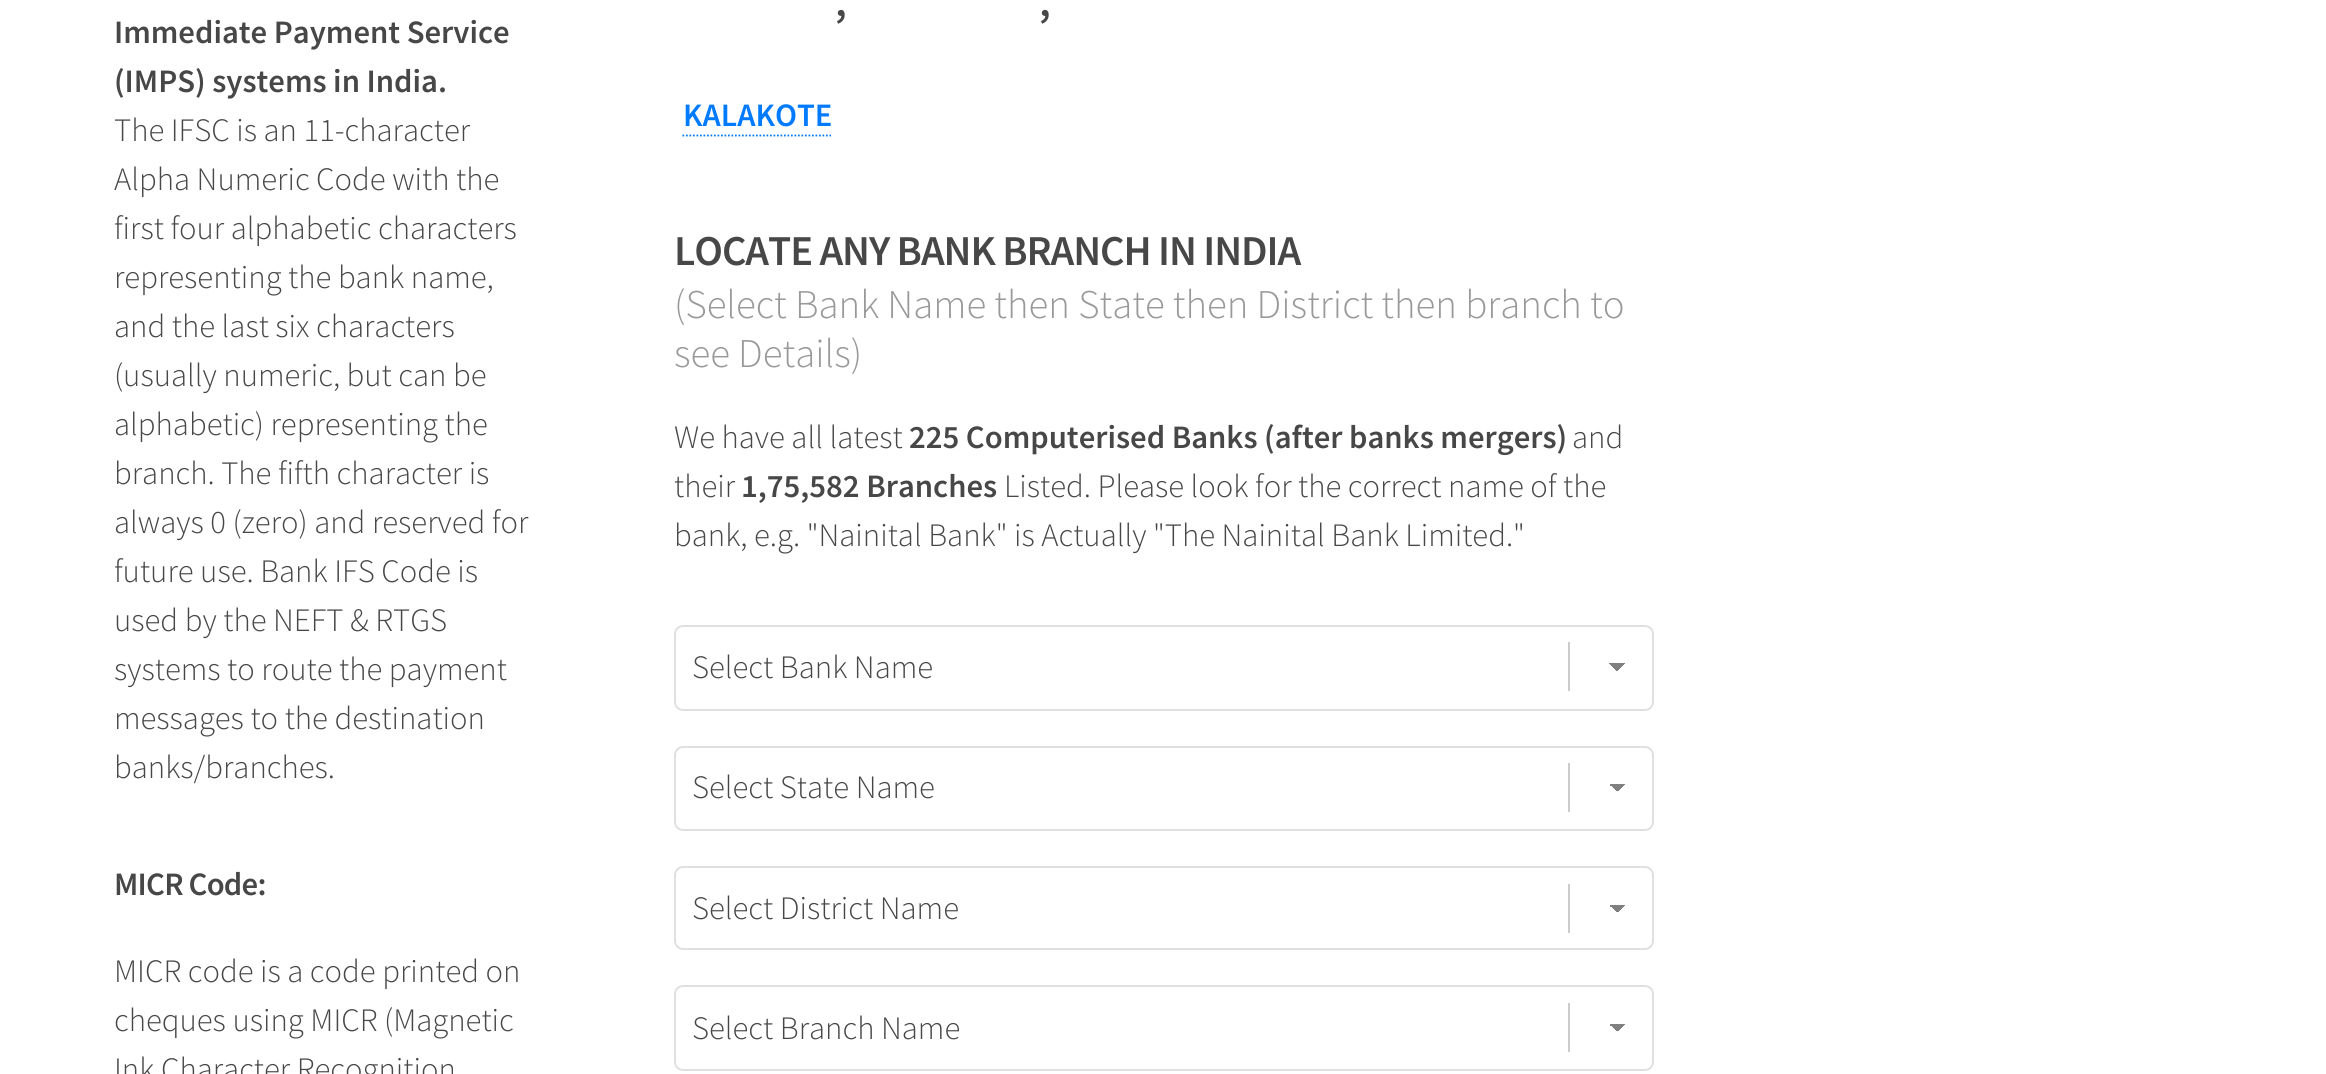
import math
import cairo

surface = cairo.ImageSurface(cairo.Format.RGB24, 2326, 1074)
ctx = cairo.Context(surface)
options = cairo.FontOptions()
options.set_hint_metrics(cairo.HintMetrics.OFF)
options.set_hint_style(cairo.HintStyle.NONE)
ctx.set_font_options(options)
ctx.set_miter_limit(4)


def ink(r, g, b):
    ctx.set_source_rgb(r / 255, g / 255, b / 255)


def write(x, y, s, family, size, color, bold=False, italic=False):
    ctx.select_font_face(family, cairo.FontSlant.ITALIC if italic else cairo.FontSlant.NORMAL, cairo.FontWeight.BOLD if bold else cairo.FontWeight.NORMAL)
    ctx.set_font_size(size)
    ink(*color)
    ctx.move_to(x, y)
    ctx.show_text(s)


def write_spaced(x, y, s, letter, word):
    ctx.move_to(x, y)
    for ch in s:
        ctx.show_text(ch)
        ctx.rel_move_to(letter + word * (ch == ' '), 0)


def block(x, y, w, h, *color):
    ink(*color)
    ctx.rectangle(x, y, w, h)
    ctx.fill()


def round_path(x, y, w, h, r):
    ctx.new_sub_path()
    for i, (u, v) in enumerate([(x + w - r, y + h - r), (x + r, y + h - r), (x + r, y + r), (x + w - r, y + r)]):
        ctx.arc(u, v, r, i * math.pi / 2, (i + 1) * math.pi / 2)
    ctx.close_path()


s1 = dict(family="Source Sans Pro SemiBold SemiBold", size=32.7, color=(71, 71, 71))
s2 = dict(family="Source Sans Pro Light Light", size=32.7, color=(71, 71, 71))
s3 = dict(family="Source Sans Pro SemiBold SemiBold", size=32.7, color=(0, 123, 255))
s4 = dict(family="Source Sans Pro Light Light", size=40.8, color=(153, 153, 153))

ink(255, 255, 255)
ctx.paint()
write(114, 43, "Immediate Payment Service", **s1)
write(114, 92, "(IMPS) systems in India.", **s1)
write(114, 141, "The IFSC is an 11-character", **s2)
write(114, 190, "Alpha Numeric Code with the", **s2)
write(114, 239, "first four alphabetic characters", **s2)
write(114, 288, "representing the bank name,", **s2)
write(114, 337, "and the last six characters", **s2)
write(114, 386, "(usually numeric, but can be", **s2)
write(114, 435, "alphabetic) representing the", **s2)
write(114, 484, "branch. The fifth character is", **s2)
write(114, 533, "always 0 (zero) and reserved for", **s2)
write(114, 582, "future use. Bank IFS Code is", **s2)
write(114, 631, "used by the NEFT & RTGS", **s2)
write(114, 680, "systems to route the payment", **s2)
write(114, 729, "messages to the destination", **s2)
write(114, 778, "banks/branches.", **s2)
ctx.select_font_face("Source Sans Pro SemiBold SemiBold")
write_spaced(114, 895, "MICR Code:", -0.75, 0)
write(114, 982, "MICR code is a code printed on", **s2)
write(114, 1031, "cheques using MICR (Magnetic", **s2)
write(114, 1080, "Ink Character Recognition", **s2)
ctx.select_font_face("Source Sans Pro SemiBold SemiBold")
ctx.set_font_size(42.5)
write_spaced(835, 16, ",", -1.05, 0)
write_spaced(1039, 16, ",", -1.05, 0)
write(683, 126, "KALAKOTE", **s3)
ctx.new_path()
ctx.move_to(682.5, 135.5)
ctx.line_to(831, 135.5)
ctx.set_line_width(1.8)
ctx.set_dash([1.75, 1.75])
ctx.stroke()
ctx.set_font_size(42.5)
ink(71, 71, 71)
write_spaced(674, 265, "LOCATE ANY BANK BRANCH IN INDIA", -1.05, 0)
write(674, 318, "(Select Bank Name then State then District then branch to", **s4)
write(674, 367, "see Details)", **s4)
write(674, 448, "We have all latest", **s2)
write(909, 448, "225 Computerised Banks (after banks mergers)", **s1)
write(1572, 448, "and", **s2)
write(674, 497, "their", **s2)
write(741, 497, "1,75,582 Branches", **s1)
write(1004, 497, "Listed. Please look for the correct name of the", **s2)
write(674, 546, "bank, e.g. \"Nainital Bank\" is Actually \"The Nainital Bank Limited.\"", **s2)
block(1568, 642, 2, 49, 204, 204, 204)
gradient = cairo.LinearGradient(1617, 663, 1626, 671)
gradient.add_color_stop_rgba(0.5, 0.502, 0.502, 0.502, 1)
gradient.add_color_stop_rgba(0.5, 1, 1, 1, 1)
ctx.set_source(gradient)
ctx.rectangle(1617, 663, 8, 8)
ctx.fill()
gradient = cairo.LinearGradient(1608, 671, 1617, 663)
gradient.add_color_stop_rgba(0.5, 1, 1, 1, 1)
gradient.add_color_stop_rgba(0.5, 0.502, 0.502, 0.502, 1)
ctx.set_source(gradient)
ctx.rectangle(1609, 663, 8, 8)
ctx.fill()
round_path(675, 626, 978, 84, 8)
ink(224, 224, 224)
ctx.set_line_width(2)
ctx.set_dash([])
ctx.stroke()
write(692, 678, "Select Bank Name", **s2)
block(1568, 763, 2, 49, 204, 204, 204)
gradient = cairo.LinearGradient(1617, 783, 1626, 792)
gradient.add_color_stop_rgba(0.5, 0.502, 0.502, 0.502, 1)
gradient.add_color_stop_rgba(0.5, 1, 1, 1, 1)
ctx.set_source(gradient)
ctx.rectangle(1617, 784, 8, 7)
ctx.fill()
gradient = cairo.LinearGradient(1608, 792, 1617, 783)
gradient.add_color_stop_rgba(0.5, 1, 1, 1, 1)
gradient.add_color_stop_rgba(0.5, 0.502, 0.502, 0.502, 1)
ctx.set_source(gradient)
ctx.rectangle(1610, 784, 7, 7)
ctx.fill()
round_path(675, 747, 978, 83, 8)
ink(224, 224, 224)
ctx.stroke()
write(692, 798, "Select State Name", **s2)
block(1568, 884, 2, 49, 204, 204, 204)
gradient = cairo.LinearGradient(1617, 904, 1626, 913)
gradient.add_color_stop_rgba(0.5, 0.502, 0.502, 0.502, 1)
gradient.add_color_stop_rgba(0.5, 1, 1, 1, 1)
ctx.set_source(gradient)
ctx.rectangle(1617, 905, 8, 7)
ctx.fill()
gradient = cairo.LinearGradient(1608, 913, 1617, 904)
gradient.add_color_stop_rgba(0.5, 1, 1, 1, 1)
gradient.add_color_stop_rgba(0.5, 0.502, 0.502, 0.502, 1)
ctx.set_source(gradient)
ctx.rectangle(1610, 905, 7, 7)
ctx.fill()
round_path(675, 867, 978, 82, 8)
ink(224, 224, 224)
ctx.stroke()
write(692, 919, "Select District Name", **s2)
block(1568, 1003, 2, 49, 204, 204, 204)
gradient = cairo.LinearGradient(1617, 1023, 1626, 1032)
gradient.add_color_stop_rgba(0.5, 0.502, 0.502, 0.502, 1)
gradient.add_color_stop_rgba(0.5, 1, 1, 1, 1)
ctx.set_source(gradient)
ctx.rectangle(1617, 1024, 8, 7)
ctx.fill()
gradient = cairo.LinearGradient(1608, 1032, 1617, 1023)
gradient.add_color_stop_rgba(0.5, 1, 1, 1, 1)
gradient.add_color_stop_rgba(0.5, 0.502, 0.502, 0.502, 1)
ctx.set_source(gradient)
ctx.rectangle(1610, 1024, 7, 7)
ctx.fill()
round_path(675, 986, 978, 84, 8)
ink(224, 224, 224)
ctx.stroke()
write(692, 1039, "Select Branch Name", **s2)
surface.write_to_png("screenshot.png")
